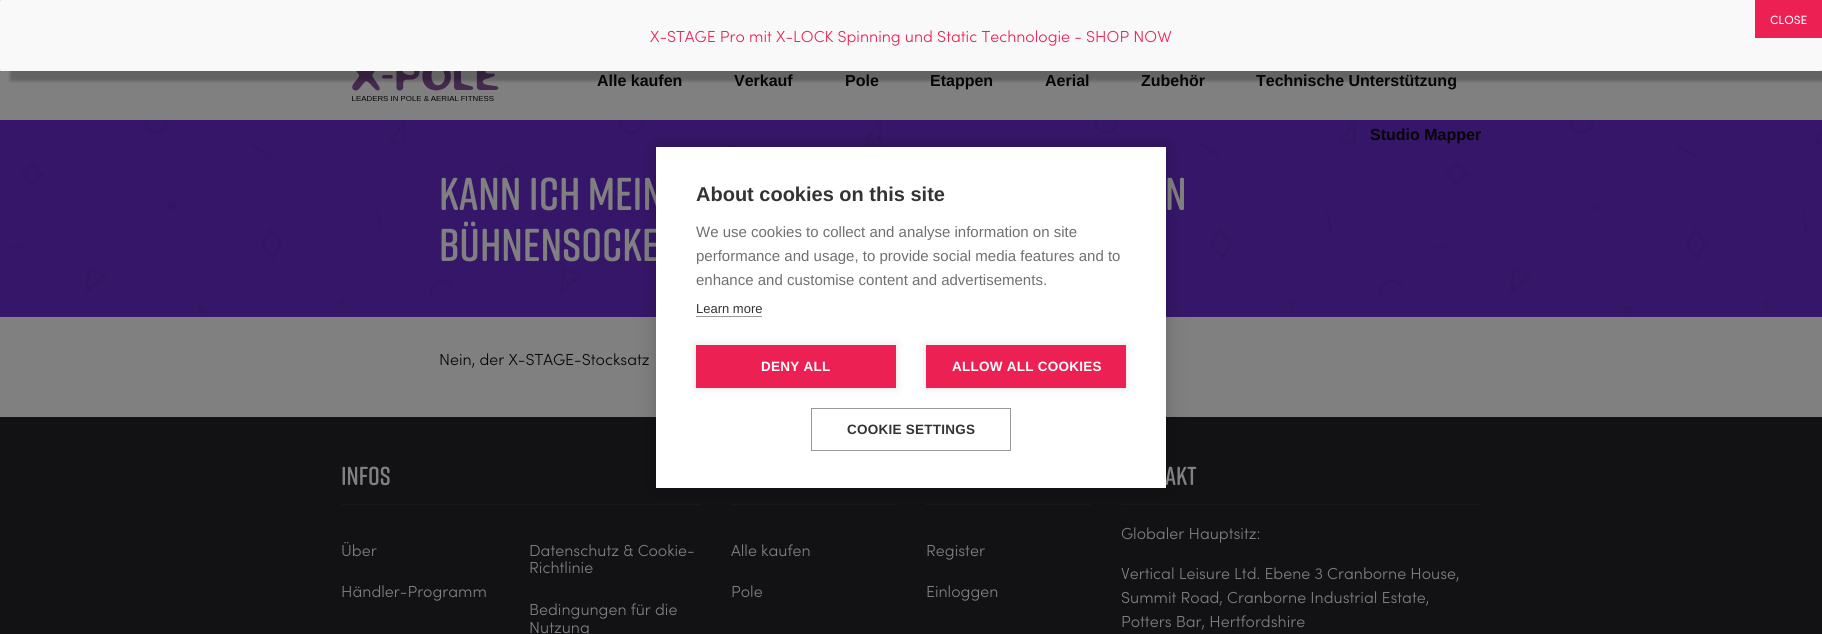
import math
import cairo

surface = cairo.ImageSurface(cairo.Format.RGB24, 1822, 634)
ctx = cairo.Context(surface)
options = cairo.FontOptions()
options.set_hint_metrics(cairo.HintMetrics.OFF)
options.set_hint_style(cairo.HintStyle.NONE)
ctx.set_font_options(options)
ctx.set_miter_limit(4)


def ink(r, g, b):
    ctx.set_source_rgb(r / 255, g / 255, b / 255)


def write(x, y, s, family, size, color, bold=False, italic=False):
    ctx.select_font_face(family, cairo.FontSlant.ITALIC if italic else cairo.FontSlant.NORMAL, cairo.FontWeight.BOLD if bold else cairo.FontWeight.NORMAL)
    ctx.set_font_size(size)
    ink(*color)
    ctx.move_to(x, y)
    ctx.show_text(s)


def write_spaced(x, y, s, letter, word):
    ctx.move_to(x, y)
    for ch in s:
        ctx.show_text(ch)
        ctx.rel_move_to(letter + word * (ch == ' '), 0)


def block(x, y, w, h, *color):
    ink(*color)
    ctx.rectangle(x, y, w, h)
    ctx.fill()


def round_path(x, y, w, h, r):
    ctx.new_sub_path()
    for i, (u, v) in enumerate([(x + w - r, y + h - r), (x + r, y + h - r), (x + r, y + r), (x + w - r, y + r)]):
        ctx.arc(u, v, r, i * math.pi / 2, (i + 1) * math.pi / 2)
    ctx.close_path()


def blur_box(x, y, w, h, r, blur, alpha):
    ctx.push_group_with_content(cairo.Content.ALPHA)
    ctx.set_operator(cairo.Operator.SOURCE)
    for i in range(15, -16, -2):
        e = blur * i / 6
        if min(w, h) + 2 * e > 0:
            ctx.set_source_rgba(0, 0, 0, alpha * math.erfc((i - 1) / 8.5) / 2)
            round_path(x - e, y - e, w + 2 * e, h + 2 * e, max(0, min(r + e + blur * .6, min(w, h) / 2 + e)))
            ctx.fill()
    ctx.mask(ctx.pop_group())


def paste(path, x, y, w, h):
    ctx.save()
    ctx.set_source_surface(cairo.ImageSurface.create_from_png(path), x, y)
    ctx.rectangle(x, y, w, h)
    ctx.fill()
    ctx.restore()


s1 = dict(family="Sofia", size=12, color=(255, 255, 255))
s2 = dict(family="Sofia Light", size=16, color=(236, 32, 83))
s3 = dict(family="Liberation Sans", size=16, color=(5, 6, 6), bold=True)
s4 = dict(family="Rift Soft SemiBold", size=46, color=(128, 128, 128))
s5 = dict(family="Sofia Light", size=16, color=(5, 6, 6))
s6 = dict(family="Rift Soft SemiBold", size=26, color=(128, 128, 128))
s7 = dict(family="Liberation Sans", size=20, color=(51, 51, 51), bold=True)
s8 = dict(family="Liberation Sans", size=15, color=(112, 112, 112))
s9 = dict(family="Liberation Sans", size=13, color=(51, 51, 51))
s10 = dict(family="Sofia Light", size=16, color=(128, 128, 128))

ink(128, 128, 128)
ctx.paint()
paste("pic1.png", 352, 71, 147, 30)
ink(2, 2, 2)
blur_box(10, 10, 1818, 71, 1, 1.5, 0.23)
ink(249, 249, 249)
round_path(0, 0, 1822, 71, 1)
ctx.fill()
block(1755, 0, 67, 38, 236, 32, 83)
write(1770, 24, "CLOSE", **s1)
write(650, 42, "X-STAGE Pro mit X-LOCK Spinning und Static Technologie - SHOP NOW", **s2)
write(597, 86, "Alle kaufen", **s3)
write(734, 86, "Verkauf", **s3)
write(845, 86, "Pole", **s3)
write(930, 86, "Etappen", **s3)
write(1045, 86, "Aerial", **s3)
write(1141, 86, "Zubehör", **s3)
write(1256, 86, "Technische Unterstützung", **s3)
paste("pic2.png", 0, 120, 1822, 197)
write(1370, 140, "Studio Mapper", **s3)
write(439, 210, "KANN ICH MEIN", **s4)
write(1165, 210, "N", **s4)
write(439, 261, "BÜHNENSOCKE", **s4)
write(439, 365, "Nein, der X-STAGE-Stocksatz", **s5)
block(0, 417, 1822, 217, 18, 18, 20)
block(341, 504, 360, 1, 25, 25, 28)
block(731, 504, 165, 1, 25, 25, 28)
block(926, 504, 165, 1, 25, 25, 28)
block(1121, 504, 360, 1, 25, 25, 28)
ink(0, 0, 0)
blur_box(656, 147, 510, 341, 0, 10, 0.2)
write(1165, 485, "AKT", **s6)
block(656, 147, 510, 341, 255, 255, 255)
write(696, 201, "About cookies on this site", **s7)
write(696, 237, "We use cookies to collect and analyse information on site", **s8)
write(696, 261, "performance and usage, to provide social media features and to", **s8)
write(696, 285, "enhance and customise content and advertisements.", **s8)
write(696, 313, "Learn more", **s9)
block(696, 316, 66, 1, 153, 153, 153)
ink(0, 0, 0)
blur_box(696, 345, 200, 43, 0, 5, 0.12)
block(696, 345, 200, 43, 236, 32, 83)
ctx.select_font_face("Liberation Sans", cairo.FontSlant.NORMAL, cairo.FontWeight.BOLD)
ctx.set_font_size(13.5)
ink(255, 255, 255)
write_spaced(761, 371, "DENY ALL", 0.25, 0)
ink(0, 0, 0)
blur_box(926, 345, 200, 43, 0, 5, 0.12)
block(926, 345, 200, 43, 236, 32, 83)
ink(255, 255, 255)
write_spaced(952, 371, "ALLOW ALL COOKIES", 0.25, 0)
ctx.rectangle(811.5, 408.5, 199, 42)
ink(153, 153, 153)
ctx.set_line_width(1)
ctx.stroke()
ink(51, 51, 51)
write_spaced(847, 434, "COOKIE SETTINGS", 0.25, 0)
write(341, 485, "INFOS", **s6)
write(341, 556, "Über", **s10)
write(529, 556, "Datenschutz & Cookie-", **s10)
write(529, 573, "Richtlinie", **s10)
write(341, 597, "Händler-Programm", **s10)
write(529, 615, "Bedingungen für die", **s10)
write(529, 633, "Nutzung", **s10)
write(731, 556, "Alle kaufen", **s10)
write(731, 597, "Pole", **s10)
write(926, 556, "Register", **s10)
write(926, 597, "Einloggen", **s10)
write(1121, 539, "Globaler Hauptsitz:", **s10)
write(1121, 579, "Vertical Leisure Ltd. Ebene 3 Cranborne House,", **s10)
write(1121, 603, "Summit Road, Cranborne Industrial Estate,", **s10)
write(1121, 627, "Potters Bar, Hertfordshire", **s10)
surface.write_to_png("screenshot.png")
